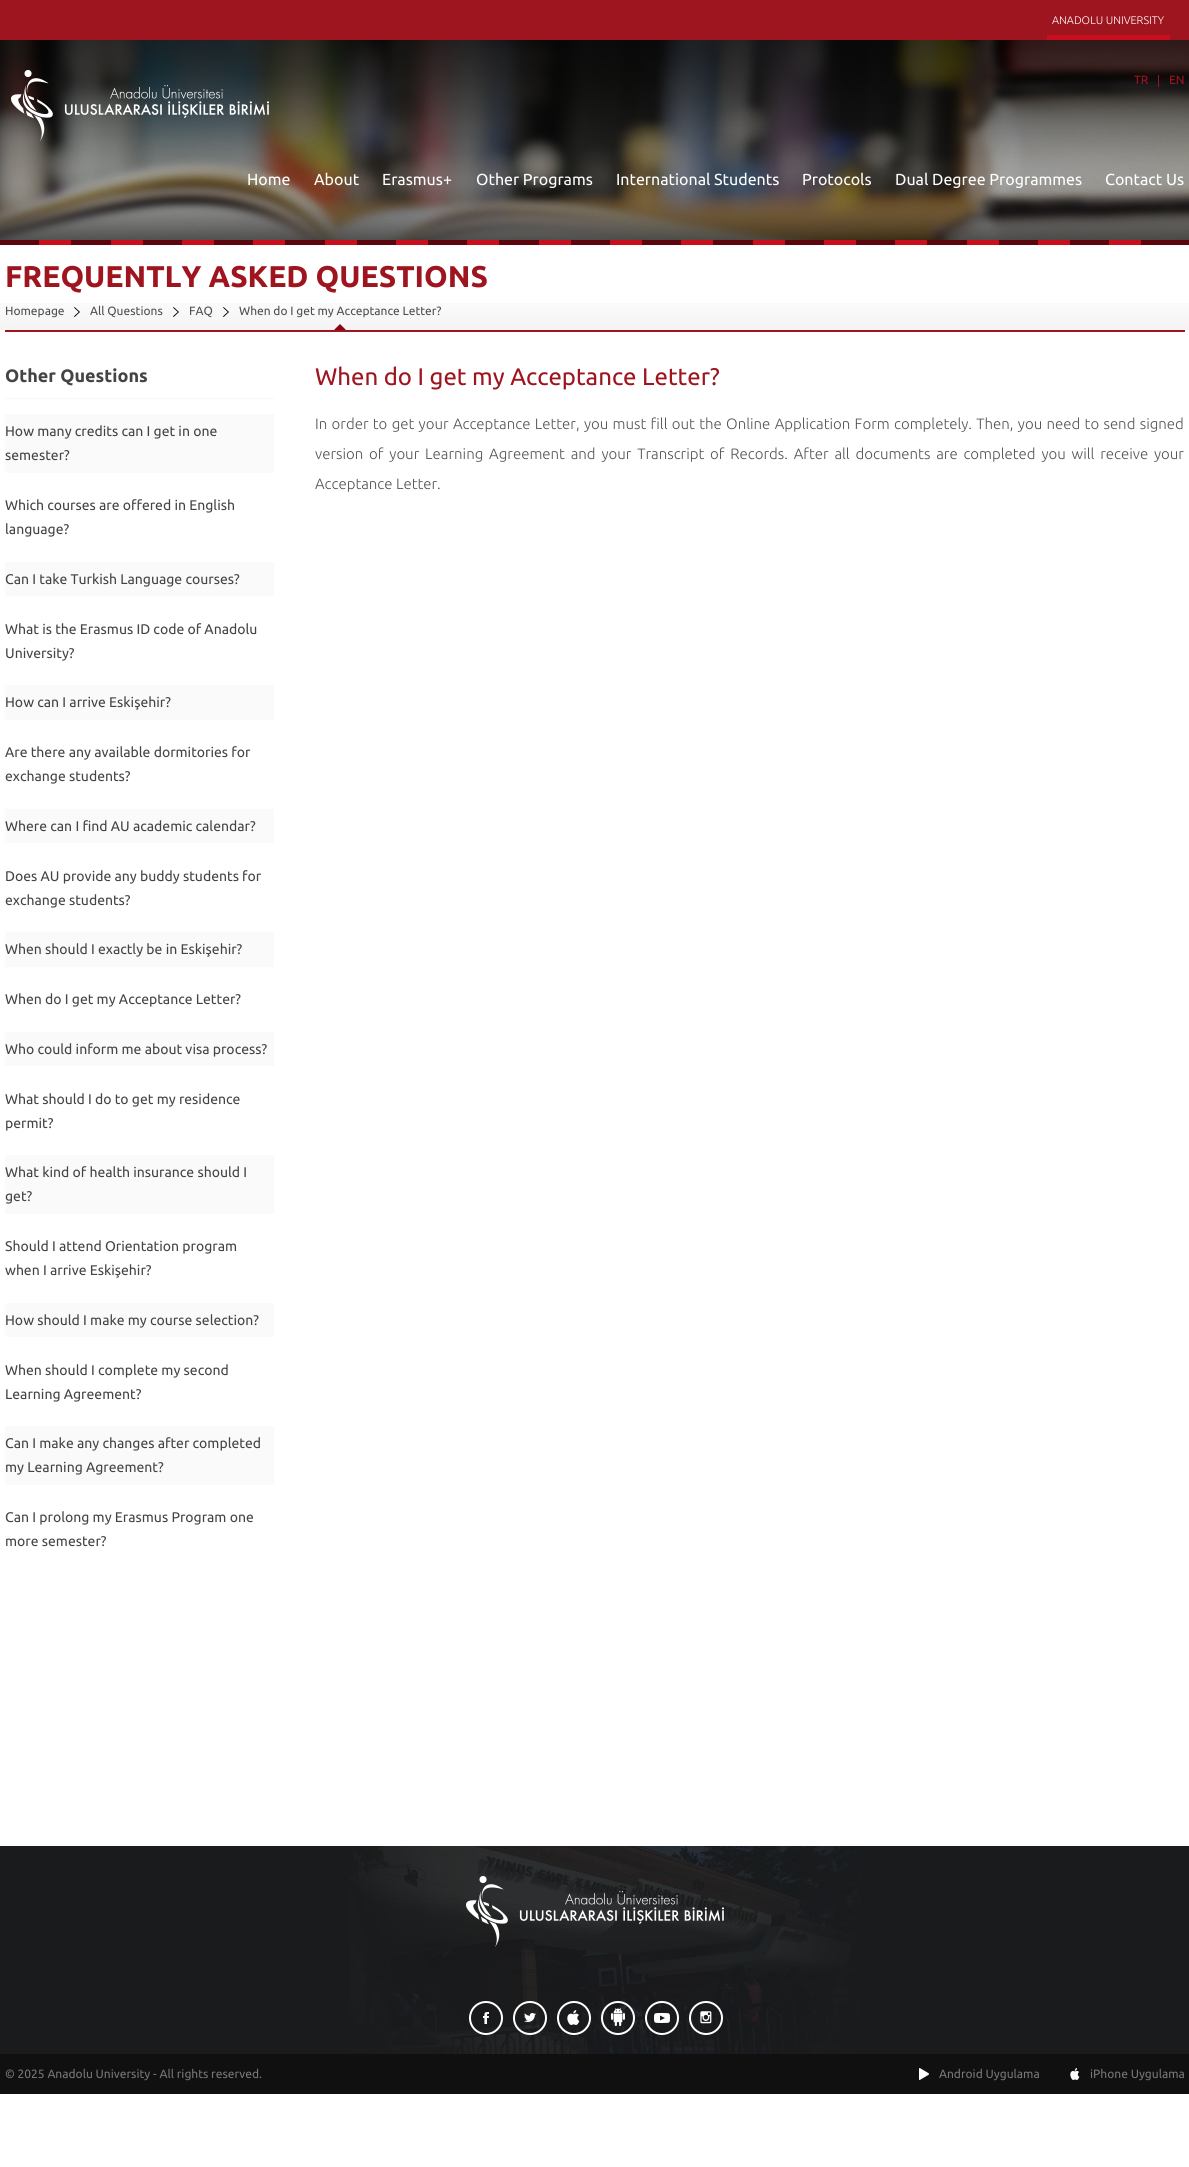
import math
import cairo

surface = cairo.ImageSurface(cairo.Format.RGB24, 1189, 2167)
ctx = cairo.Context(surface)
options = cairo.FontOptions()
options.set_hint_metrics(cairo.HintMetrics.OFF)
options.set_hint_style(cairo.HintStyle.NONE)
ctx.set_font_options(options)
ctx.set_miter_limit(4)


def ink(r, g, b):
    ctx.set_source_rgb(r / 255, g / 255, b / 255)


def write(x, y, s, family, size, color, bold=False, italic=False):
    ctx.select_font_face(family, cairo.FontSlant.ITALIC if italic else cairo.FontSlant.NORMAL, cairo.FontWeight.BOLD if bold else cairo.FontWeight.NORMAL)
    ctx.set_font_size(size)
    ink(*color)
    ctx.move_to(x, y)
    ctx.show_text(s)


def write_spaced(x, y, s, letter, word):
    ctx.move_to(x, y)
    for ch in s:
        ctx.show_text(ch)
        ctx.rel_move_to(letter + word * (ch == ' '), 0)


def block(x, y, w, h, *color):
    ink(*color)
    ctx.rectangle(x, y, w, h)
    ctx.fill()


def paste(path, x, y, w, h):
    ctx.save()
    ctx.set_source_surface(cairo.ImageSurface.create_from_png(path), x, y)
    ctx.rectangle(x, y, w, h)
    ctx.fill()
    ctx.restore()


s1 = dict(family="Ubuntu Light", size=11, color=(255, 255, 255))
s2 = dict(family="Ubuntu", size=12, color=(158, 20, 31))
s3 = dict(family="Ubuntu", size=16, color=(255, 255, 255))
s4 = dict(family="Ubuntu", size=30, color=(158, 20, 31), bold=True)
s5 = dict(family="Ubuntu", size=12, color=(78, 78, 78))
s6 = dict(family="Ubuntu", size=18, color=(68, 68, 68), bold=True)
s7 = dict(family="Ubuntu", size=14, color=(68, 68, 68))
s8 = dict(family="Ubuntu", size=24, color=(158, 20, 31))
s9 = dict(family="Ubuntu Light", size=15, color=(85, 85, 85))
s10 = dict(family="Ubuntu", size=12, color=(119, 119, 119))

ink(255, 255, 255)
ctx.paint()
block(0, 0, 1189, 40, 158, 20, 31)
block(1047, 35, 123, 5, 203, 14, 29)
write(1052, 24, "ANADOLU UNIVERSITY", **s1)
paste("pic2.png", 0, 40, 1189, 200)
paste("pic1.png", 11, 70, 258, 71)
block(1158, 75, 1, 12, 158, 20, 31)
write(1134, 84, "TR", **s2)
write(1169, 84, "EN", **s2)
write(247, 185, "Home", **s3)
write(314, 185, "About", **s3)
write(382, 185, "Erasmus+", **s3)
write(476, 185, "Other Programs", **s3)
write(616, 185, "International Students", **s3)
write(802, 185, "Protocols", **s3)
write(895, 185, "Dual Degree Programmes", **s3)
write(1105, 185, "Contact Us", **s3)
block(0, 240, 1189, 5, 93, 5, 13)
block(39, 240, 32, 5, 201, 14, 29)
block(111, 240, 32, 5, 201, 14, 29)
block(182, 240, 32, 5, 201, 14, 29)
block(253, 240, 32, 5, 201, 14, 29)
block(325, 240, 32, 5, 201, 14, 29)
block(396, 240, 32, 5, 201, 14, 29)
block(467, 240, 32, 5, 201, 14, 29)
block(539, 240, 32, 5, 201, 14, 29)
block(610, 240, 32, 5, 201, 14, 29)
block(681, 240, 32, 5, 201, 14, 29)
block(753, 240, 32, 5, 201, 14, 29)
block(824, 240, 32, 5, 201, 14, 29)
block(895, 240, 32, 5, 201, 14, 29)
block(967, 240, 32, 5, 201, 14, 29)
block(1038, 240, 32, 5, 201, 14, 29)
block(1109, 240, 32, 5, 201, 14, 29)
paste("pic3.png", 0, 303, 1189, 27)
block(5, 330, 1180, 2, 158, 20, 31)
write(5, 287, "FREQUENTLY ASKED QUESTIONS", **s4)
paste("pic4.png", 74, 307, 6, 10)
write(5, 315, "Homepage", **s5)
paste("pic4.png", 173, 307, 6, 10)
write(90, 315, "All Questions", **s5)
paste("pic4.png", 223, 307, 6, 10)
write(189, 315, "FAQ", **s5)
paste("pic5.png", 334, 324, 12, 6)
write(239, 315, "When do I get my Acceptance Letter?", **s5)
block(5, 398, 269, 1, 247, 247, 247)
write(5, 382, "Other Questions", **s6)
block(5, 414, 269, 59, 250, 250, 250)
write(5, 436, "How many credits can I get in one", **s7)
write(5, 460, "semester?", **s7)
write(5, 510, "Which courses are offered in English", **s7)
write(5, 534, "language?", **s7)
block(5, 562, 269, 34, 250, 250, 250)
write(5, 584, "Can I take Turkish Language courses?", **s7)
write(5, 634, "What is the Erasmus ID code of Anadolu", **s7)
write(5, 658, "University?", **s7)
block(5, 685, 269, 35, 250, 250, 250)
write(5, 707, "How can I arrive Eskişehir?", **s7)
write(5, 757, "Are there any available dormitories for", **s7)
write(5, 781, "exchange students?", **s7)
block(5, 809, 269, 34, 250, 250, 250)
write(5, 831, "Where can I find AU academic calendar?", **s7)
write(5, 881, "Does AU provide any buddy students for", **s7)
write(5, 905, "exchange students?", **s7)
block(5, 932, 269, 35, 250, 250, 250)
write(5, 954, "When should I exactly be in Eskişehir?", **s7)
write(5, 1004, "When do I get my Acceptance Letter?", **s7)
block(5, 1032, 269, 34, 250, 250, 250)
write(5, 1054, "Who could inform me about visa process?", **s7)
write(5, 1104, "What should I do to get my residence", **s7)
write(5, 1128, "permit?", **s7)
block(5, 1155, 269, 59, 250, 250, 250)
write(5, 1177, "What kind of health insurance should I", **s7)
write(5, 1201, "get?", **s7)
write(5, 1251, "Should I attend Orientation program", **s7)
write(5, 1275, "when I arrive Eskişehir?", **s7)
block(5, 1303, 269, 34, 250, 250, 250)
write(5, 1325, "How should I make my course selection?", **s7)
write(5, 1375, "When should I complete my second", **s7)
write(5, 1399, "Learning Agreement?", **s7)
block(5, 1426, 269, 59, 250, 250, 250)
write(5, 1448, "Can I make any changes after completed", **s7)
write(5, 1472, "my Learning Agreement?", **s7)
write(5, 1522, "Can I prolong my Erasmus Program one", **s7)
write(5, 1546, "more semester?", **s7)
write(315, 385, "When do I get my Acceptance Letter?", **s8)
ctx.select_font_face("Ubuntu Light")
ctx.set_font_size(15)
ink(85, 85, 85)
write_spaced(315, 429, "In order to get your Acceptance Letter, you must fill out the Online Application Form completely. Then, you need to send signed", 0, 0.9)
write_spaced(315, 459, "version of your Learning Agreement and your Transcript of Records. After all documents are completed you will receive your", 0, 2.4)
write(315, 489, "Acceptance Letter.", **s9)
block(0, 1846, 1189, 208, 25, 27, 29)
paste("pic6.png", 350, 1846, 511, 208)
paste("pic7.png", 466, 1876, 258, 71)
paste("pic8.png", 483, 2012, 6, 12)
ctx.arc(486, 2018, 16, 0, 2 * math.pi)
ink(255, 255, 255)
ctx.stroke()
paste("pic9.png", 524, 2013, 12, 9)
ctx.arc(530, 2018, 16, 0, 2 * math.pi)
ctx.stroke()
paste("pic10.png", 567, 2010, 13, 15)
ctx.arc(574, 2018, 16, 0, 2 * math.pi)
ctx.stroke()
paste("pic11.png", 611, 2008, 14, 18)
ctx.arc(618, 2018, 16, 0, 2 * math.pi)
ctx.stroke()
paste("pic12.png", 654, 2013, 16, 10)
ctx.arc(662, 2018, 16, 0, 2 * math.pi)
ctx.stroke()
paste("pic13.png", 700, 2011, 12, 13)
ctx.arc(706, 2018, 16, 0, 2 * math.pi)
ctx.stroke()
block(0, 2054, 1189, 40, 16, 16, 16)
write(5, 2078, "© 2025 Anadolu University - All rights reserved.", **s10)
paste("pic14.png", 919, 2068, 10, 12)
write(939, 2078, "Android Uygulama", **s10)
paste("pic15.png", 1070, 2068, 10, 12)
write(1090, 2078, "iPhone Uygulama", **s10)
surface.write_to_png("screenshot.png")
